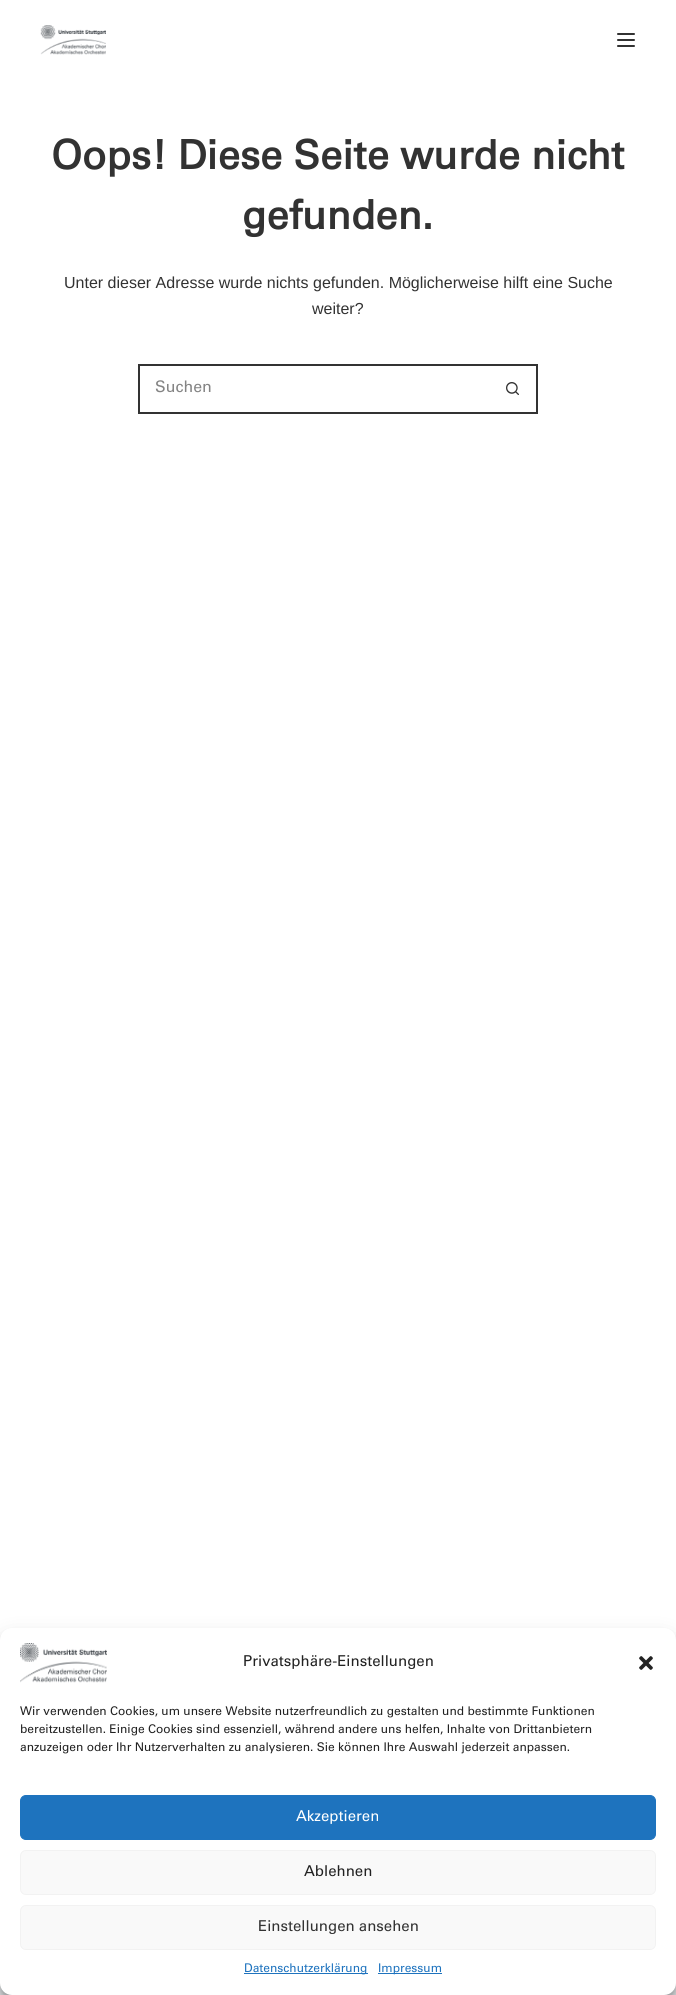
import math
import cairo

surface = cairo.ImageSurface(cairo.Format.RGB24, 676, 1995)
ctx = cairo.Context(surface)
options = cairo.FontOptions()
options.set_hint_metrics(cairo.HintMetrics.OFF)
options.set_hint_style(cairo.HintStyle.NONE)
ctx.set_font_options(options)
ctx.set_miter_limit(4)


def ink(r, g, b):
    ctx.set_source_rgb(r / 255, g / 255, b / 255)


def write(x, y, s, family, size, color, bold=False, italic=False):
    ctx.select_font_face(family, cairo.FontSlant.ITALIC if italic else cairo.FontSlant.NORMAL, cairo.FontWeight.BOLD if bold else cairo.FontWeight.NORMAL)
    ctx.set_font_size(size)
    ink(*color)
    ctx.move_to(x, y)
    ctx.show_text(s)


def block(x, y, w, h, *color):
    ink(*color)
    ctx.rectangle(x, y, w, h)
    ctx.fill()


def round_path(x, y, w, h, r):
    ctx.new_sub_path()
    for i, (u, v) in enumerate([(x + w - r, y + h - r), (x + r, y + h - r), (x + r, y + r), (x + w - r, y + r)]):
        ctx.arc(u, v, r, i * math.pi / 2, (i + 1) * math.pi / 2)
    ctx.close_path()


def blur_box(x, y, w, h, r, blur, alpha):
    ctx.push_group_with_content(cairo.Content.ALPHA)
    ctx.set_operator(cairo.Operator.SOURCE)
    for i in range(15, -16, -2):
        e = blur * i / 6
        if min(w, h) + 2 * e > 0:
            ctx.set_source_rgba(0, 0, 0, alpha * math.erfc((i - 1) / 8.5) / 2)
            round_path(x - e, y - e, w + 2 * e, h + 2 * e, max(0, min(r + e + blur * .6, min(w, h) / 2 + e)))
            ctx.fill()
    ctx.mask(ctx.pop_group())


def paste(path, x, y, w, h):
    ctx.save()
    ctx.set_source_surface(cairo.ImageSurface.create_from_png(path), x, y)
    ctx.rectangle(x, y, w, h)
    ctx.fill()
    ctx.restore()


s1 = dict(family="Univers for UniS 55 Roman", size=40, color=(50, 50, 50), bold=True)
s2 = dict(family="Liberation Sans", size=16, color=(50, 50, 50))
s3 = dict(family="Univers for UniS 55 Roman", size=16, color=(132, 132, 132))
s4 = dict(family="Univers for UniS 55 Roman", size=15, color=(34, 34, 34))
s5 = dict(family="Univers for UniS 55 Roman", size=12, color=(34, 34, 34))
s6 = dict(family="Univers for UniS 55 Roman", size=15, color=(255, 255, 255))
s7 = dict(family="Univers for UniS 55 Roman", size=15, color=(50, 50, 50))
s8 = dict(family="Univers for UniS 55 Roman", size=12, color=(30, 115, 190))

ink(255, 255, 255)
ctx.paint()
paste("pic1.png", 40, 25, 66, 30)
ink(50, 50, 50)
round_path(617, 33, 18, 2, 1)
ctx.fill()
round_path(617, 39, 18, 2, 1)
ctx.fill()
round_path(617, 45, 18, 2, 1)
ctx.fill()
write(51, 169, "Oops! Diese Seite wurde nicht", **s1)
write(242, 229, "gefunden.", **s1)
write(64, 288, "Unter dieser Adresse wurde nichts gefunden. Möglicherweise hilft eine Suche", **s2)
write(312, 314, "weiter?", **s2)
block(138, 364, 400, 2, 50, 50, 50)
block(138, 412, 350, 2, 50, 50, 50)
block(138, 364, 2, 50, 50, 50, 50)
write(155, 392, "Suchen", **s3)
block(536, 364, 2, 50, 50, 50, 50)
block(488, 412, 50, 2, 50, 50, 50)
paste("pic2.png", 506, 382, 13, 13)
block(0, 1983, 676, 12, 232, 235, 237)
ink(0, 0, 0)
blur_box(0, 1634, 676, 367, 12, 3, 0.23)
blur_box(0, 1638, 676, 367, 12, 10, 0.19)
ink(255, 255, 255)
round_path(0, 1628, 676, 367, 12)
ctx.fill()
paste("pic3.png", 20, 1643, 87, 40)
write(243, 1666, "Privatsphäre-Einstellungen", **s4)
paste("pic4.png", 639, 1656, 14, 14)
write(20, 1715, "Wir verwenden Cookies, um unsere Website nutzerfreundlich zu gestalten und bestimmte Funktionen", **s5)
write(20, 1733, "bereitzustellen. Einige Cookies sind essenziell, während andere uns helfen, Inhalte von Drittanbietern", **s5)
write(20, 1751, "anzuzeigen oder Ihr Nutzerverhalten zu analysieren. Sie können Ihre Auswahl jederzeit anpassen.", **s5)
ink(30, 115, 190)
round_path(20.5, 1795.5, 635, 44, 5.5)
ctx.fill_preserve()
ctx.set_line_width(1)
ctx.stroke()
write(296, 1821, "Akzeptieren", **s6)
ink(249, 249, 249)
round_path(20.5, 1850.5, 635, 44, 5.5)
ctx.fill_preserve()
ink(242, 242, 242)
ctx.stroke()
write(304, 1876, "Ablehnen", **s4)
ink(249, 249, 249)
round_path(20.5, 1905.5, 635, 44, 5.5)
ctx.fill_preserve()
ink(242, 242, 242)
ctx.stroke()
write(258, 1931, "Einstellungen ansehen", **s7)
block(244, 1973, 124, 1, 30, 115, 190)
write(244, 1972, "Datenschutzerklärung", **s8)
block(378, 1973, 64, 1, 30, 115, 190)
write(378, 1972, "Impressum", **s8)
surface.write_to_png("screenshot.png")
